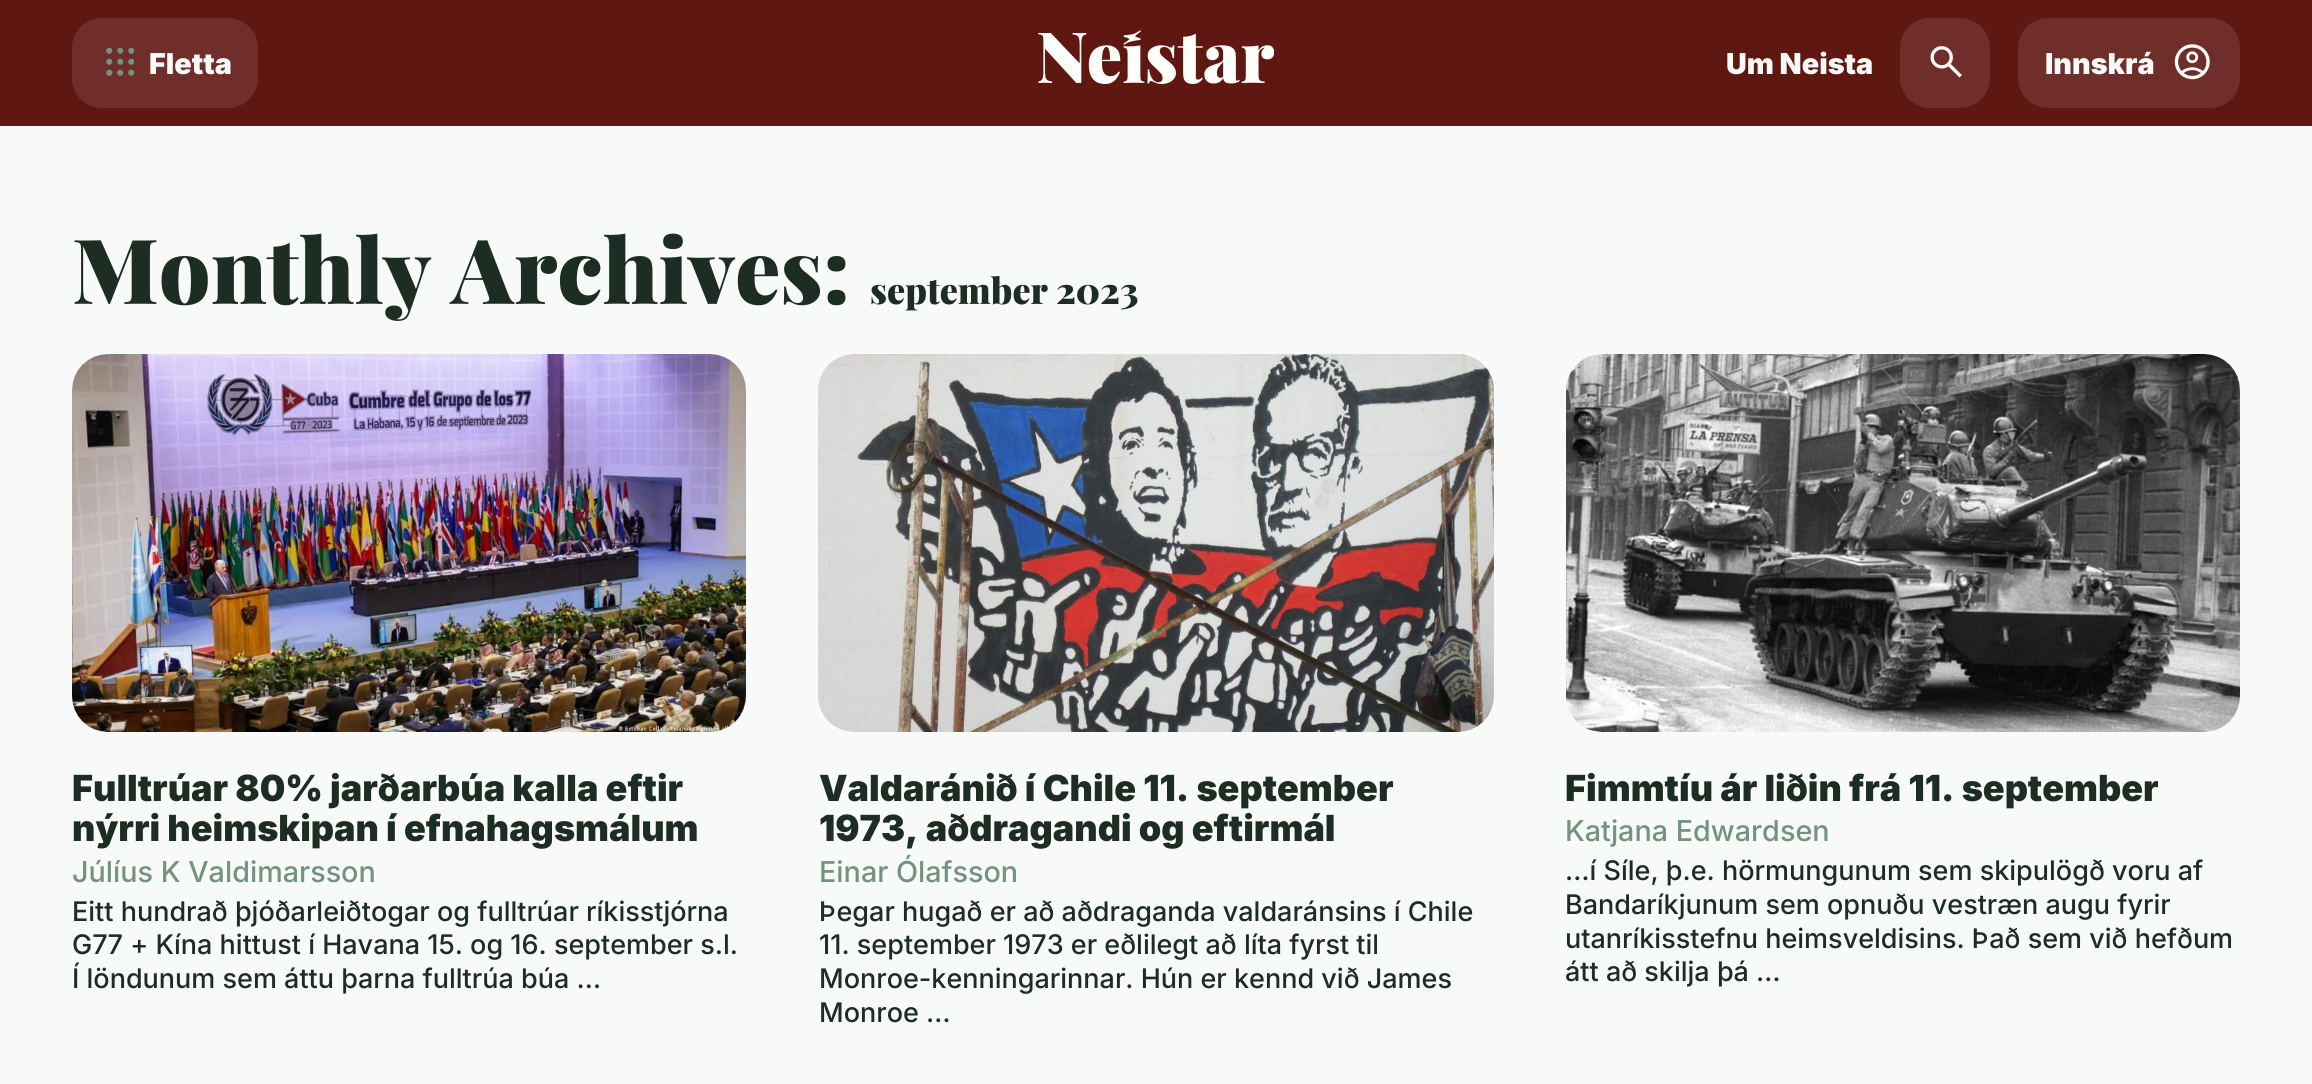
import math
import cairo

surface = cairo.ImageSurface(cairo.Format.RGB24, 2312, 1084)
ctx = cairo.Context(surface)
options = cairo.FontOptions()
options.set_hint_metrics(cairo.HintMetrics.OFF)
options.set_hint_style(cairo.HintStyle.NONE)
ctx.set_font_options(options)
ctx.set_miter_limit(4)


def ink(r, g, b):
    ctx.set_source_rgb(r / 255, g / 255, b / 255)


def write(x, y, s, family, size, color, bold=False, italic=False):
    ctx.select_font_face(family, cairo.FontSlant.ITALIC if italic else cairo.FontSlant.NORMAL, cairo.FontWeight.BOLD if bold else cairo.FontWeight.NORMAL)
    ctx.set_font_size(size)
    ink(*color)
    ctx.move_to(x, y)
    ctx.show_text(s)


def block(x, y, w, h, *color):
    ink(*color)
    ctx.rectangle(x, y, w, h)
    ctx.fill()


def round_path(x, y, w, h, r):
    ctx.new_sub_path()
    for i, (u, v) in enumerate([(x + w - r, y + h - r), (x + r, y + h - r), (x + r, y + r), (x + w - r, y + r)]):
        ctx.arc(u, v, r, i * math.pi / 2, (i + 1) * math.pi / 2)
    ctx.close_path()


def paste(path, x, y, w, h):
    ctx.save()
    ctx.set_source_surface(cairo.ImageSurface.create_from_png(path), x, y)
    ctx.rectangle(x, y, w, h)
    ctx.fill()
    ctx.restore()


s1 = dict(family="Inter Black", size=28.75, color=(248, 250, 249))
s2 = dict(family="Playfair Display Black", size=90, color=(30, 45, 36))
s3 = dict(family="Playfair Display Black", size=36, color=(30, 45, 36))
s4 = dict(family="Inter Black", size=36, color=(30, 45, 36))
s5 = dict(family="Inter Medium", size=28.75, color=(115, 147, 126))
s6 = dict(family="Inter Medium", size=27, color=(30, 45, 36))

ink(248, 250, 249)
ctx.paint()
block(0, 0, 2312, 126, 95, 23, 18)
ink(111, 46, 42)
round_path(72, 18, 186, 90, 30)
ctx.fill()
paste("pic1.png", 106, 47, 29, 29)
write(149, 74, "Fletta", **s1)
paste("pic2.png", 1038, 30, 236, 54)
write(1726, 74, "Um Neista", **s1)
ink(111, 46, 42)
round_path(1900, 18, 90, 90, 30)
ctx.fill()
paste("pic3.png", 1930, 46, 32, 32)
round_path(2018, 18, 222, 90, 30)
ctx.fill()
write(2045, 74, "Innskrá", **s1)
paste("pic4.png", 2174, 44, 36, 36)
write(72, 304, "Monthly Archives:", **s2)
write(870, 304, "september 2023", **s3)
ink(255, 255, 255)
round_path(72, 354, 674, 378, 36)
ctx.fill()
paste("pic5.png", 72, 354, 674, 378)
write(72, 801, "Fulltrúar 80% jarðarbúa kalla eftir", **s4)
write(72, 841, "nýrri heimskipan í efnahagsmálum", **s4)
write(72, 882, "Júlíus K Valdimarsson", **s5)
write(72, 921, "Eitt hundrað þjóðarleiðtogar og fulltrúar ríkisstjórna", **s6)
write(72, 954, "G77 + Kína hittust í Havana 15. og 16. september s.l.", **s6)
write(72, 988, "Í löndunum sem áttu þarna fulltrúa búa …", **s6)
ink(255, 255, 255)
round_path(818, 354, 676, 378, 36)
ctx.fill()
paste("pic6.png", 818, 354, 676, 378)
write(819, 801, "Valdaránið í Chile 11. september", **s4)
write(819, 841, "1973, aðdragandi og eftirmál", **s4)
write(819, 882, "Einar Ólafsson", **s5)
write(819, 921, "Þegar hugað er að aðdraganda valdaránsins í Chile", **s6)
write(819, 954, "11. september 1973 er eðlilegt að líta fyrst til", **s6)
write(819, 988, "Monroe-kenningarinnar. Hún er kennd við James", **s6)
write(819, 1022, "Monroe …", **s6)
ink(255, 255, 255)
round_path(1566, 354, 674, 378, 36)
ctx.fill()
paste("pic7.png", 1566, 354, 674, 378)
write(1565, 801, "Fimmtíu ár liðin frá 11. september", **s4)
write(1565, 841, "Katjana Edwardsen", **s5)
write(1565, 880, "…í Síle, þ.e. hörmungunum sem skipulögð voru af", **s6)
write(1565, 914, "Bandaríkjunum sem opnuðu vestræn augu fyrir", **s6)
write(1565, 948, "utanríkisstefnu heimsveldisins. Það sem við hefðum", **s6)
write(1565, 981, "átt að skilja þá …", **s6)
surface.write_to_png("screenshot.png")
